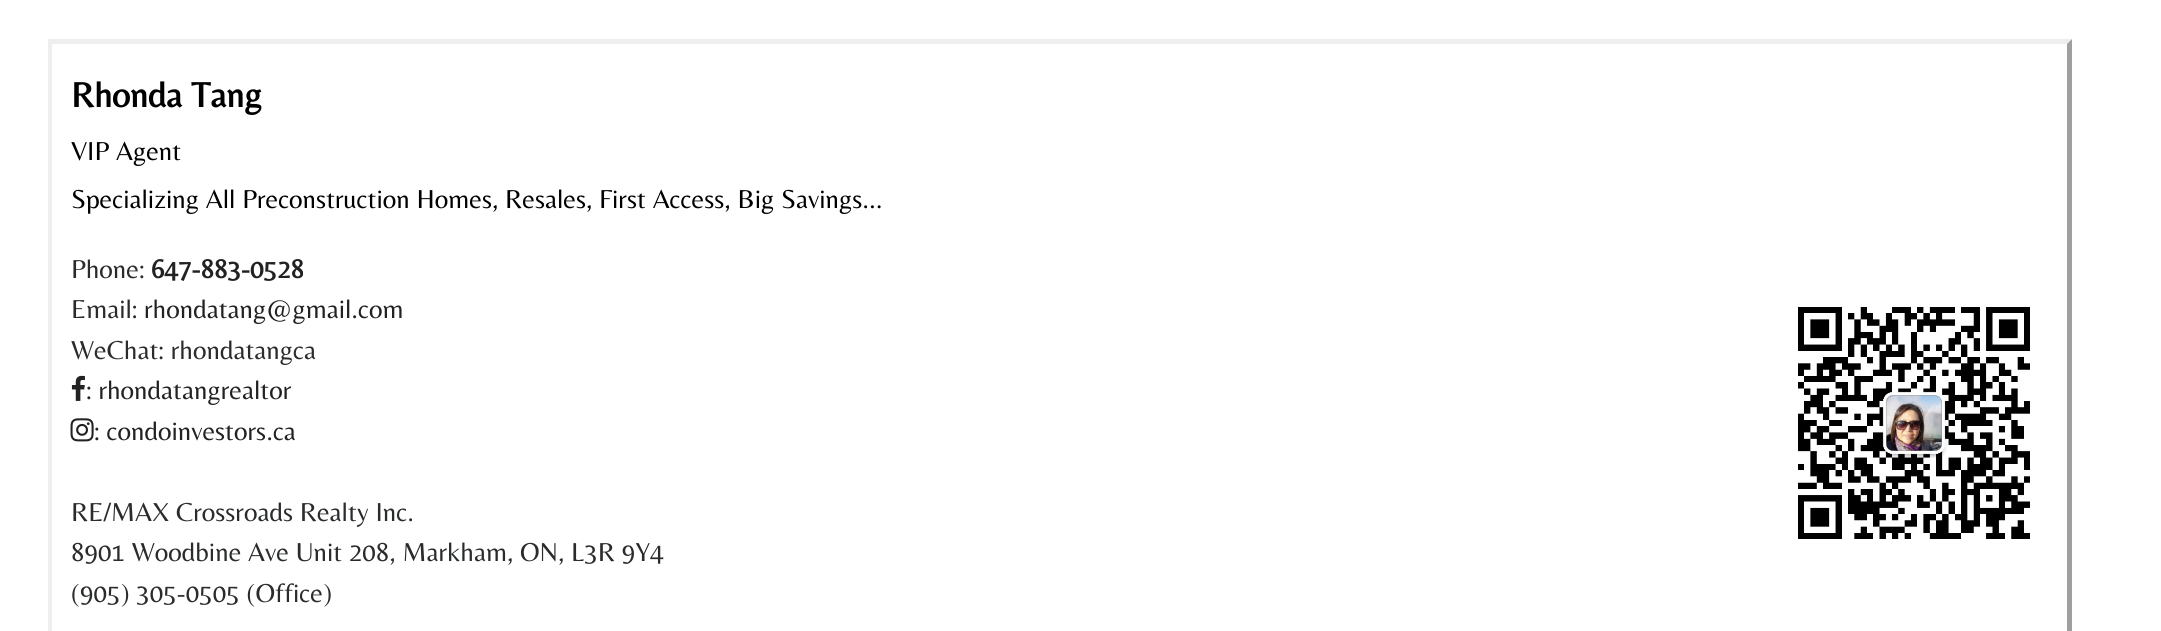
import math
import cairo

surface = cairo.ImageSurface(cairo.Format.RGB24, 2161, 631)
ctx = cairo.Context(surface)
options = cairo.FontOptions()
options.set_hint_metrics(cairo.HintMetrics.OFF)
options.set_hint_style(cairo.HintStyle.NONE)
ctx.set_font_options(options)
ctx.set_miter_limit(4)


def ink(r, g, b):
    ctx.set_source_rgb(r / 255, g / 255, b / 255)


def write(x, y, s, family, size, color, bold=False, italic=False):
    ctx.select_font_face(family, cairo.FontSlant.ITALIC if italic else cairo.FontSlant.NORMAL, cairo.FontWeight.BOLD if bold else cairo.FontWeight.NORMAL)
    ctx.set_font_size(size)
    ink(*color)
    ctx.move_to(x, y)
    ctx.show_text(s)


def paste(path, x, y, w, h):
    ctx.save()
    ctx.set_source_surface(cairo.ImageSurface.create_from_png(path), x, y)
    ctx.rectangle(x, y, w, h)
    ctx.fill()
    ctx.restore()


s1 = dict(family="Belleza", size=36, color=(0, 0, 0), bold=True)
s2 = dict(family="Belleza", size=27, color=(0, 0, 0))
s3 = dict(family="Belleza", size=27, color=(41, 43, 44))
s4 = dict(family="Belleza", size=27, color=(34, 34, 34), bold=True)
s5 = dict(family="Belleza", size=27, color=(34, 34, 34))

ink(255, 255, 255)
ctx.paint()
ink(238, 238, 238)
ctx.new_path()
ctx.move_to(48, 39)
ctx.line_to(2072, 39)
ctx.line_to(2067, 44)
ctx.line_to(52, 44)
ctx.close_path()
ctx.fill()
ink(159, 159, 159)
ctx.new_path()
ctx.move_to(2072, 39)
ctx.line_to(2072, 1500)
ctx.line_to(2067, 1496)
ctx.line_to(2067, 44)
ctx.close_path()
ctx.fill()
ink(238, 238, 238)
ctx.new_path()
ctx.move_to(48, 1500)
ctx.line_to(48, 39)
ctx.line_to(52, 44)
ctx.line_to(52, 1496)
ctx.close_path()
ctx.fill()
write(71, 107, "Rhonda Tang", **s1)
write(71, 160, "VIP Agent", **s2)
write(71, 208, "Specializing All Preconstruction Homes, Resales, First Access, Big Savings...", **s2)
write(71, 278, "Phone:", **s3)
write(151, 278, "647-883-0528", **s4)
write(71, 318, "Email:", **s3)
write(144, 318, "rhondatang@gmail.com", **s5)
paste("pic1.png", 1797, 303, 233, 236)
write(71, 359, "WeChat: rhondatangca", **s3)
paste("pic2.png", 71, 375, 14, 26)
write(86, 399, ": rhondatangrealtor", **s5)
paste("pic3.png", 70, 418, 24, 24)
write(94, 440, ": condoinvestors.ca", **s5)
write(71, 521, "RE/MAX Crossroads Realty Inc.", **s3)
write(71, 561, "8901 Woodbine Ave Unit 208, Markham, ON, L3R 9Y4", **s3)
write(71, 602, "(905) 305-0505 (Office)", **s3)
surface.write_to_png("screenshot.png")
